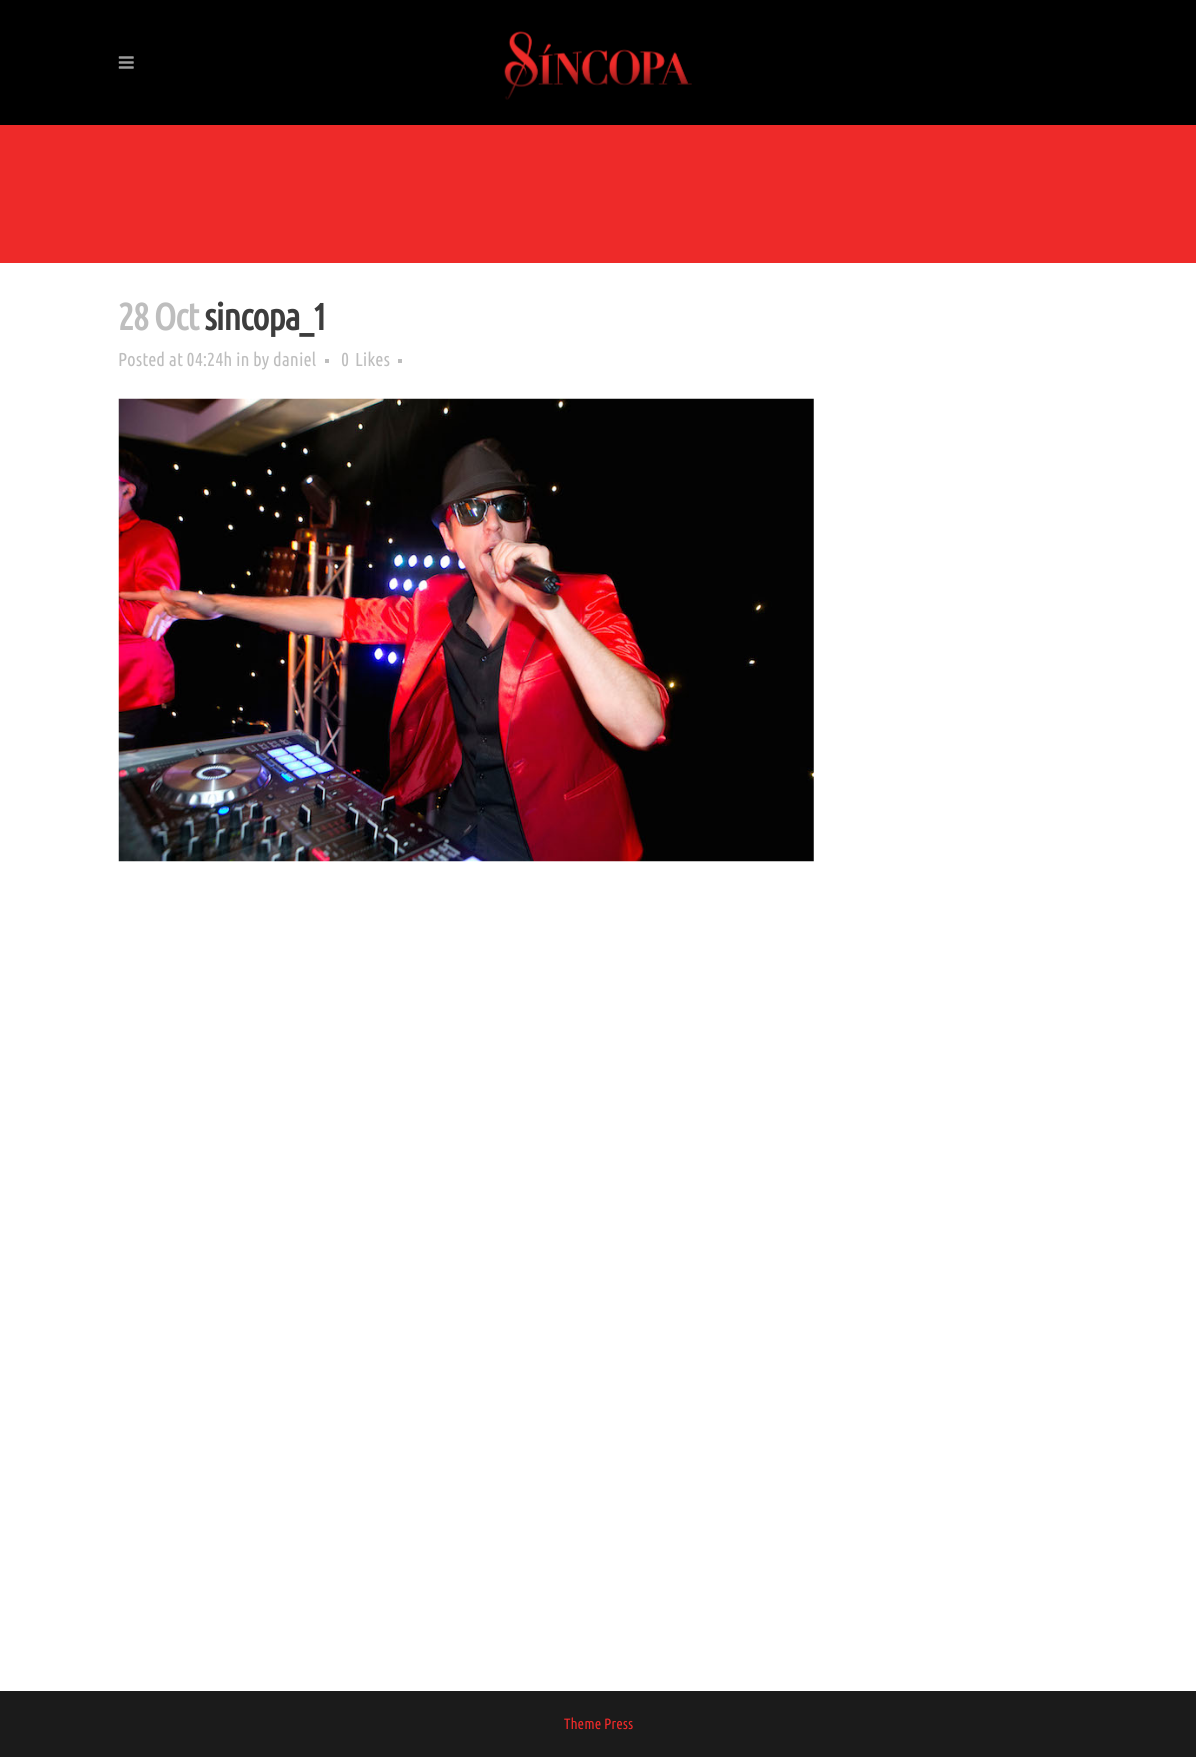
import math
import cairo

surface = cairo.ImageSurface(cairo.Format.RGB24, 1196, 1757)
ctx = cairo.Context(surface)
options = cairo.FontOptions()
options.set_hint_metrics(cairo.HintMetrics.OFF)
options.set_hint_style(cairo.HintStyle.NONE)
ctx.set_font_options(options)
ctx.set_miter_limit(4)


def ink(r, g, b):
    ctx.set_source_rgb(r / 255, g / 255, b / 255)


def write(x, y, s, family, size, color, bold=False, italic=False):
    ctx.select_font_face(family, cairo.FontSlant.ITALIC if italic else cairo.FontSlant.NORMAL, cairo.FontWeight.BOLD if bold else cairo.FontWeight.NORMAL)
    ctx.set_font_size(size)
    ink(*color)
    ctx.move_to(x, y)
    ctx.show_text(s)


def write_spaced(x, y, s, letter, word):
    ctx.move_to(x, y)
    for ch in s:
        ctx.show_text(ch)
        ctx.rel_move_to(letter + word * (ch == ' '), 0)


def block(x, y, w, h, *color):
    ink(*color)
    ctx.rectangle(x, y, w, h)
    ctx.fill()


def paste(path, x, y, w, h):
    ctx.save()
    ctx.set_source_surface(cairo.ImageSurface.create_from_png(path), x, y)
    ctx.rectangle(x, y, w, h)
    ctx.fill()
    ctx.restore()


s1 = dict(family="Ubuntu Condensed", size=18.75, color=(190, 190, 190))
s2 = dict(family="Ubuntu Condensed", size=15, color=(238, 42, 41))

ink(255, 255, 255)
ctx.paint()
block(0, 0, 1196, 125, 0, 0, 0)
paste("pic1.png", 118, 56, 16, 13)
paste("pic2.png", 504, 31, 188, 69)
block(0, 125, 1196, 138, 238, 42, 41)
ctx.select_font_face("Ubuntu Condensed", cairo.FontSlant.NORMAL, cairo.FontWeight.BOLD)
ctx.set_font_size(37.5)
ink(190, 190, 190)
write_spaced(118, 330, "28 Oct", -1.25, 0)
ink(61, 61, 61)
write_spaced(204, 330, "sincopa_1", -1.25, 0)
write(118, 366, "Posted at 04:24h in by daniel", **s1)
block(325, 359, 4, 4, 190, 190, 190)
write(341, 366, "0", **s1)
write(355, 366, "Likes", **s1)
block(398, 359, 4, 4, 190, 190, 190)
paste("pic3.png", 118, 398, 696, 464)
block(0, 1691, 1196, 66, 27, 27, 27)
write(564, 1729, "Theme Press", **s2)
surface.write_to_png("screenshot.png")
